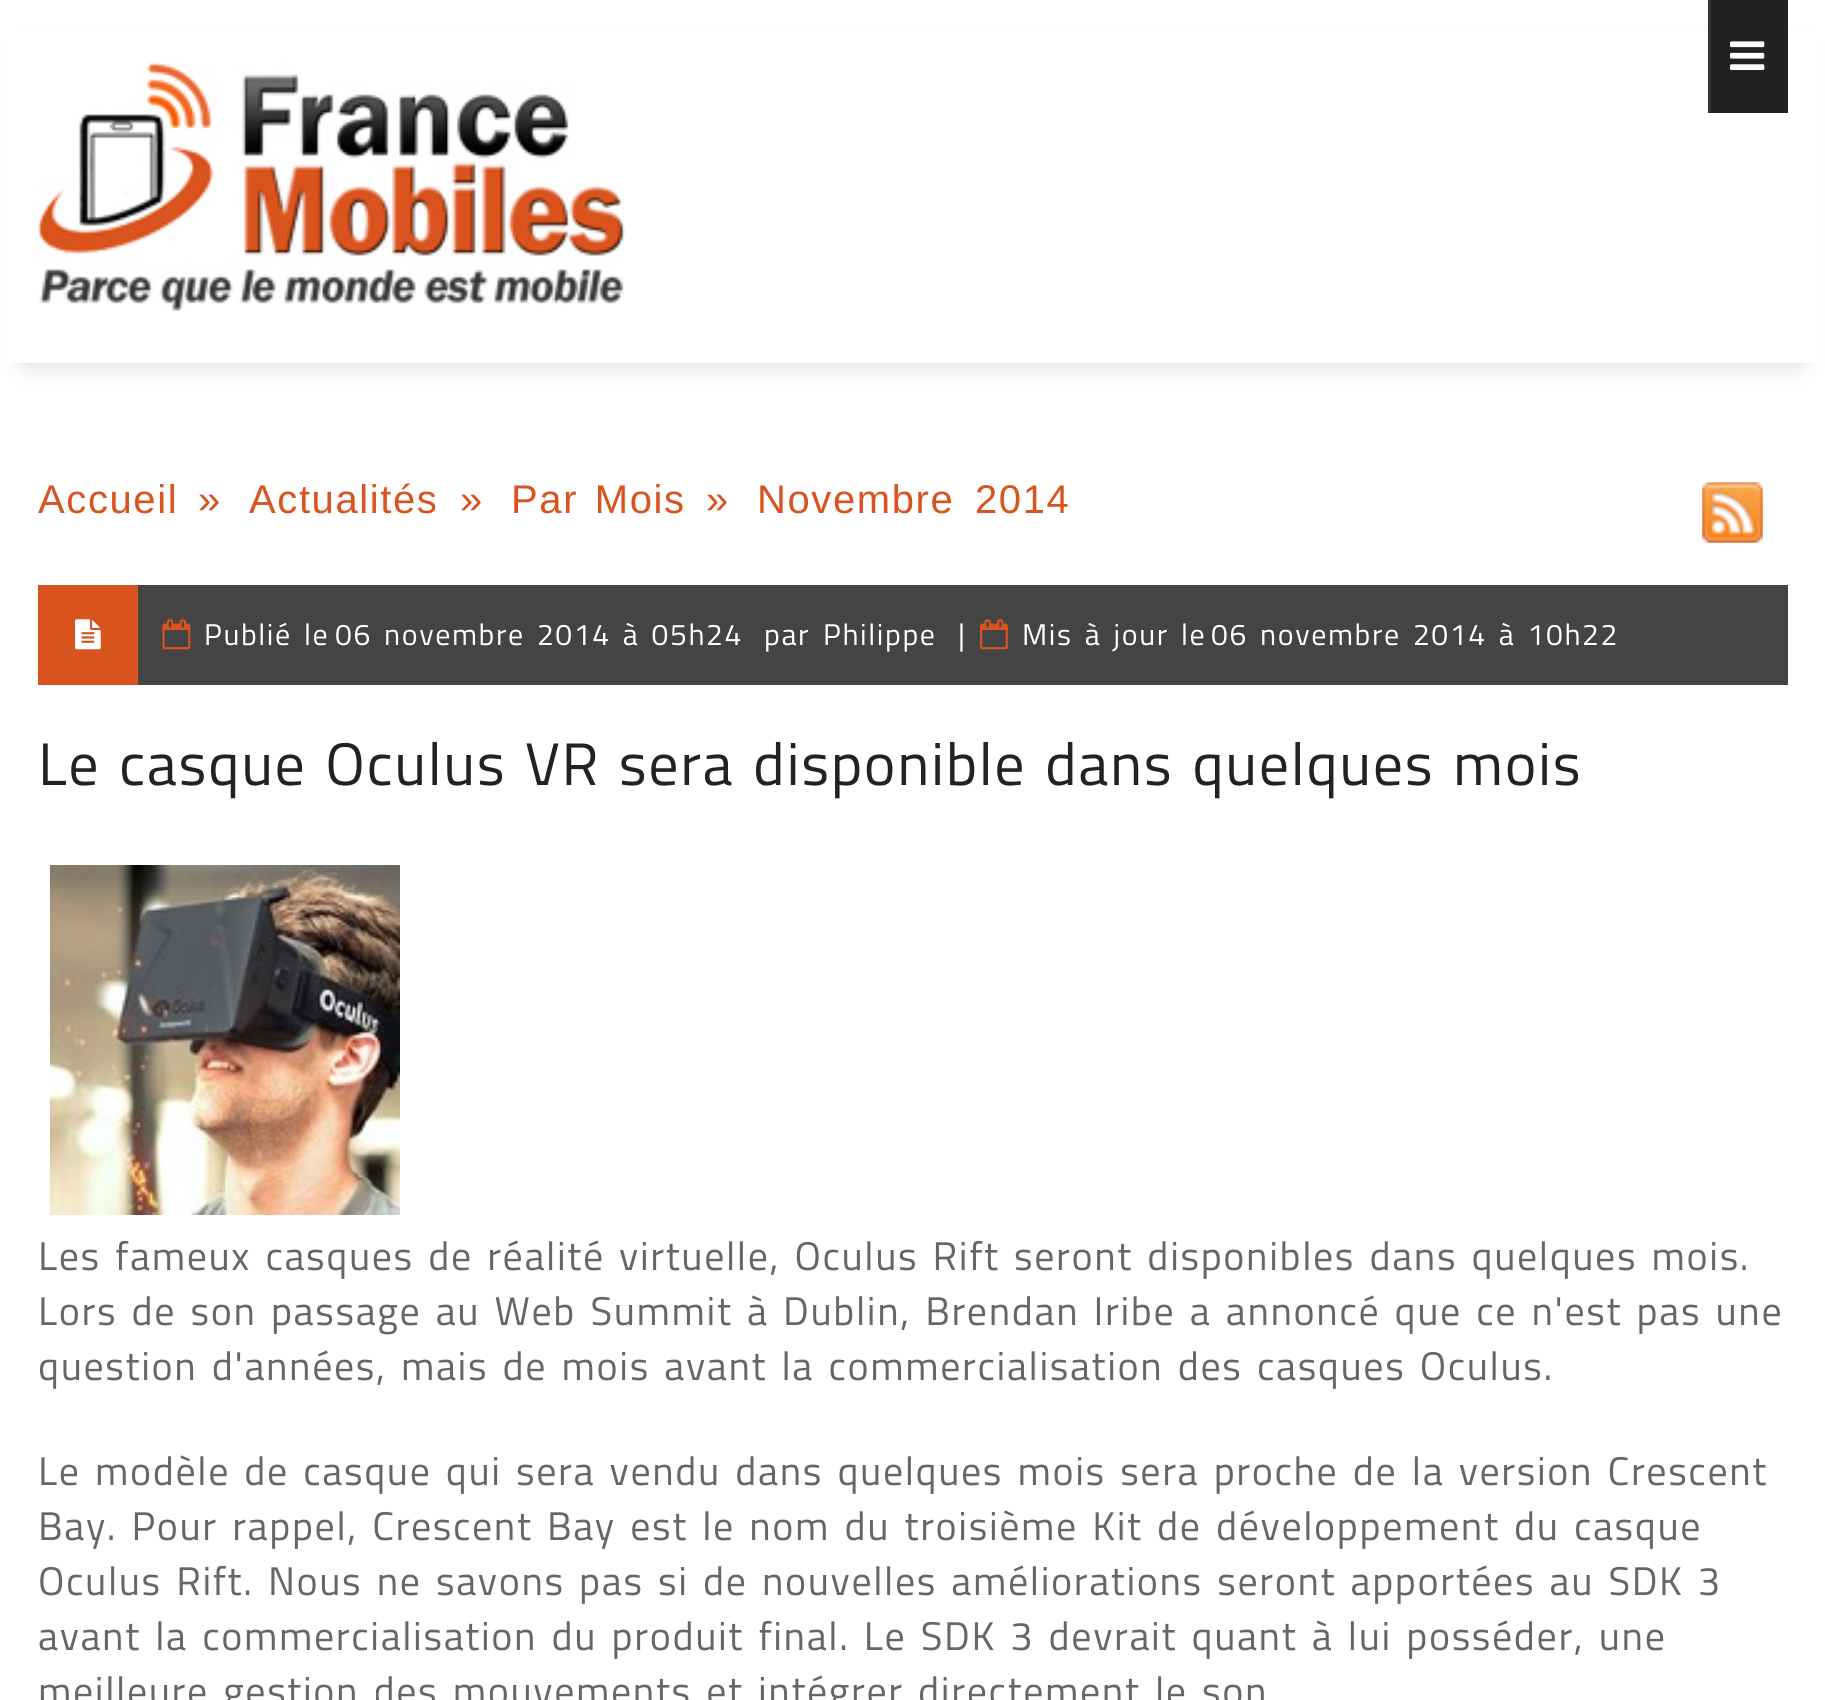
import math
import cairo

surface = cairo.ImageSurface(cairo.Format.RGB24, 1825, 1700)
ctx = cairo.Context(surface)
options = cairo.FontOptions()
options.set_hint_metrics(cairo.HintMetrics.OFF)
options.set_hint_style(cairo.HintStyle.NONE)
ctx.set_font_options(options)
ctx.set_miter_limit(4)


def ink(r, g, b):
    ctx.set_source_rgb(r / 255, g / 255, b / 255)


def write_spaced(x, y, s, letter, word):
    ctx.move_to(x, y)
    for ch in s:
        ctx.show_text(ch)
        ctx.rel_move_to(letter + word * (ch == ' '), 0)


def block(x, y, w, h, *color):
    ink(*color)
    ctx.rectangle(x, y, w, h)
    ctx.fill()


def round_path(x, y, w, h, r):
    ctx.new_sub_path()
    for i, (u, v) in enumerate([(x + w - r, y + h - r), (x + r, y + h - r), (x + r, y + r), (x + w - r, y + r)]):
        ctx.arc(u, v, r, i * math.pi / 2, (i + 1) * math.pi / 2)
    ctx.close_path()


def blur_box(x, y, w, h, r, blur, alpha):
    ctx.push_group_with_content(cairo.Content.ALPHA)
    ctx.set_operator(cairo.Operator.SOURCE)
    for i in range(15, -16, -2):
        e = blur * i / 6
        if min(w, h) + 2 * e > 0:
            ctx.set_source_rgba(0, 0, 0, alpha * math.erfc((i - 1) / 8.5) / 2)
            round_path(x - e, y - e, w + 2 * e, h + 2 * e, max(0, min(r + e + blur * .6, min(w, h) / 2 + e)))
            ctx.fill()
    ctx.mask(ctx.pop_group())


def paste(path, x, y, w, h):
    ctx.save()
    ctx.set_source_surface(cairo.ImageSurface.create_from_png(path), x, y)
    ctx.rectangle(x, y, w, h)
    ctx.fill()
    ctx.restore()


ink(255, 255, 255)
ctx.paint()
ink(34, 34, 34)
blur_box(25, 50, 1775, 313, 0, 12.5, 0.2)
block(6, 31, 1813, 332, 255, 255, 255)
block(1711, 0, 77, 113, 34, 34, 34)
block(1708, 0, 3, 113, 51, 51, 51)
paste("pic1.png", 1730, 41, 35, 29)
paste("pic2.png", 37, 62, 588, 249)
ctx.select_font_face("Liberation Sans")
ctx.set_font_size(40)
ink(217, 83, 31)
write_spaced(38, 513, "Accueil", 1.6, 0)
write_spaced(198, 513, "»", 1.6, 0)
write_spaced(249, 513, "Actualités", 1.6, 0)
write_spaced(460, 513, "»", 1.6, 0)
write_spaced(511, 513, "Par Mois", 1.6, 4)
write_spaced(706, 513, "»", 1.6, 0)
write_spaced(757, 513, "Novembre", 1.6, 0)
write_spaced(975, 513, "2014", 1.6, 0)
paste("pic3.png", 1702, 482, 61, 61)
paste("pic4.png", 1702, 482, 61, 61)
block(138, 585, 1650, 100, 68, 68, 68)
block(38, 585, 100, 100, 217, 83, 31)
paste("pic5.png", 75, 619, 26, 31)
paste("pic6.png", 162, 619, 29, 31)
ctx.select_font_face("Titillium Web")
ctx.set_font_size(30)
ink(255, 255, 255)
write_spaced(204, 645, "Publié le", 1.6, 4)
write_spaced(335, 645, "06 novembre 2014 à 05h24", 1.6, 4)
write_spaced(764, 645, "par", 1.6, 0)
write_spaced(823, 645, "Philippe", 1.6, 0)
write_spaced(958, 645, "|", 1.6, 0)
paste("pic7.png", 980, 619, 28, 31)
write_spaced(1022, 645, "Mis à jour le", 1.6, 4)
write_spaced(1211, 645, "06 novembre 2014 à 10h22", 1.6, 4)
ctx.set_font_size(60)
ink(34, 34, 34)
write_spaced(38, 785, "Le casque Oculus VR sera disponible dans quelques mois", 1.6, 4)
paste("pic8.png", 50, 865, 350, 350)
ctx.set_font_size(40)
ink(102, 102, 102)
write_spaced(38, 1270, "Les fameux casques de réalité virtuelle, Oculus Rift seront disponibles dans quelques mois.", 1.6, 4)
write_spaced(38, 1325, "Lors de son passage au Web Summit à Dublin, Brendan Iribe a annoncé que ce n'est pas une", 1.6, 4)
write_spaced(38, 1380, "question d'années, mais de mois avant la commercialisation des casques Oculus.", 1.6, 4)
write_spaced(38, 1485, "Le modèle de casque qui sera vendu dans quelques mois sera proche de la version Crescent", 1.6, 4)
write_spaced(38, 1540, "Bay. Pour rappel, Crescent Bay est le nom du troisième Kit de développement du casque", 1.6, 4)
write_spaced(38, 1595, "Oculus Rift. Nous ne savons pas si de nouvelles améliorations seront apportées au SDK 3", 1.6, 4)
write_spaced(38, 1650, "avant la commercialisation du produit final. Le SDK 3 devrait quant à lui posséder, une", 1.6, 4)
write_spaced(38, 1705, "meilleure gestion des mouvements et intégrer directement le son", 1.6, 4)
surface.write_to_png("screenshot.png")
